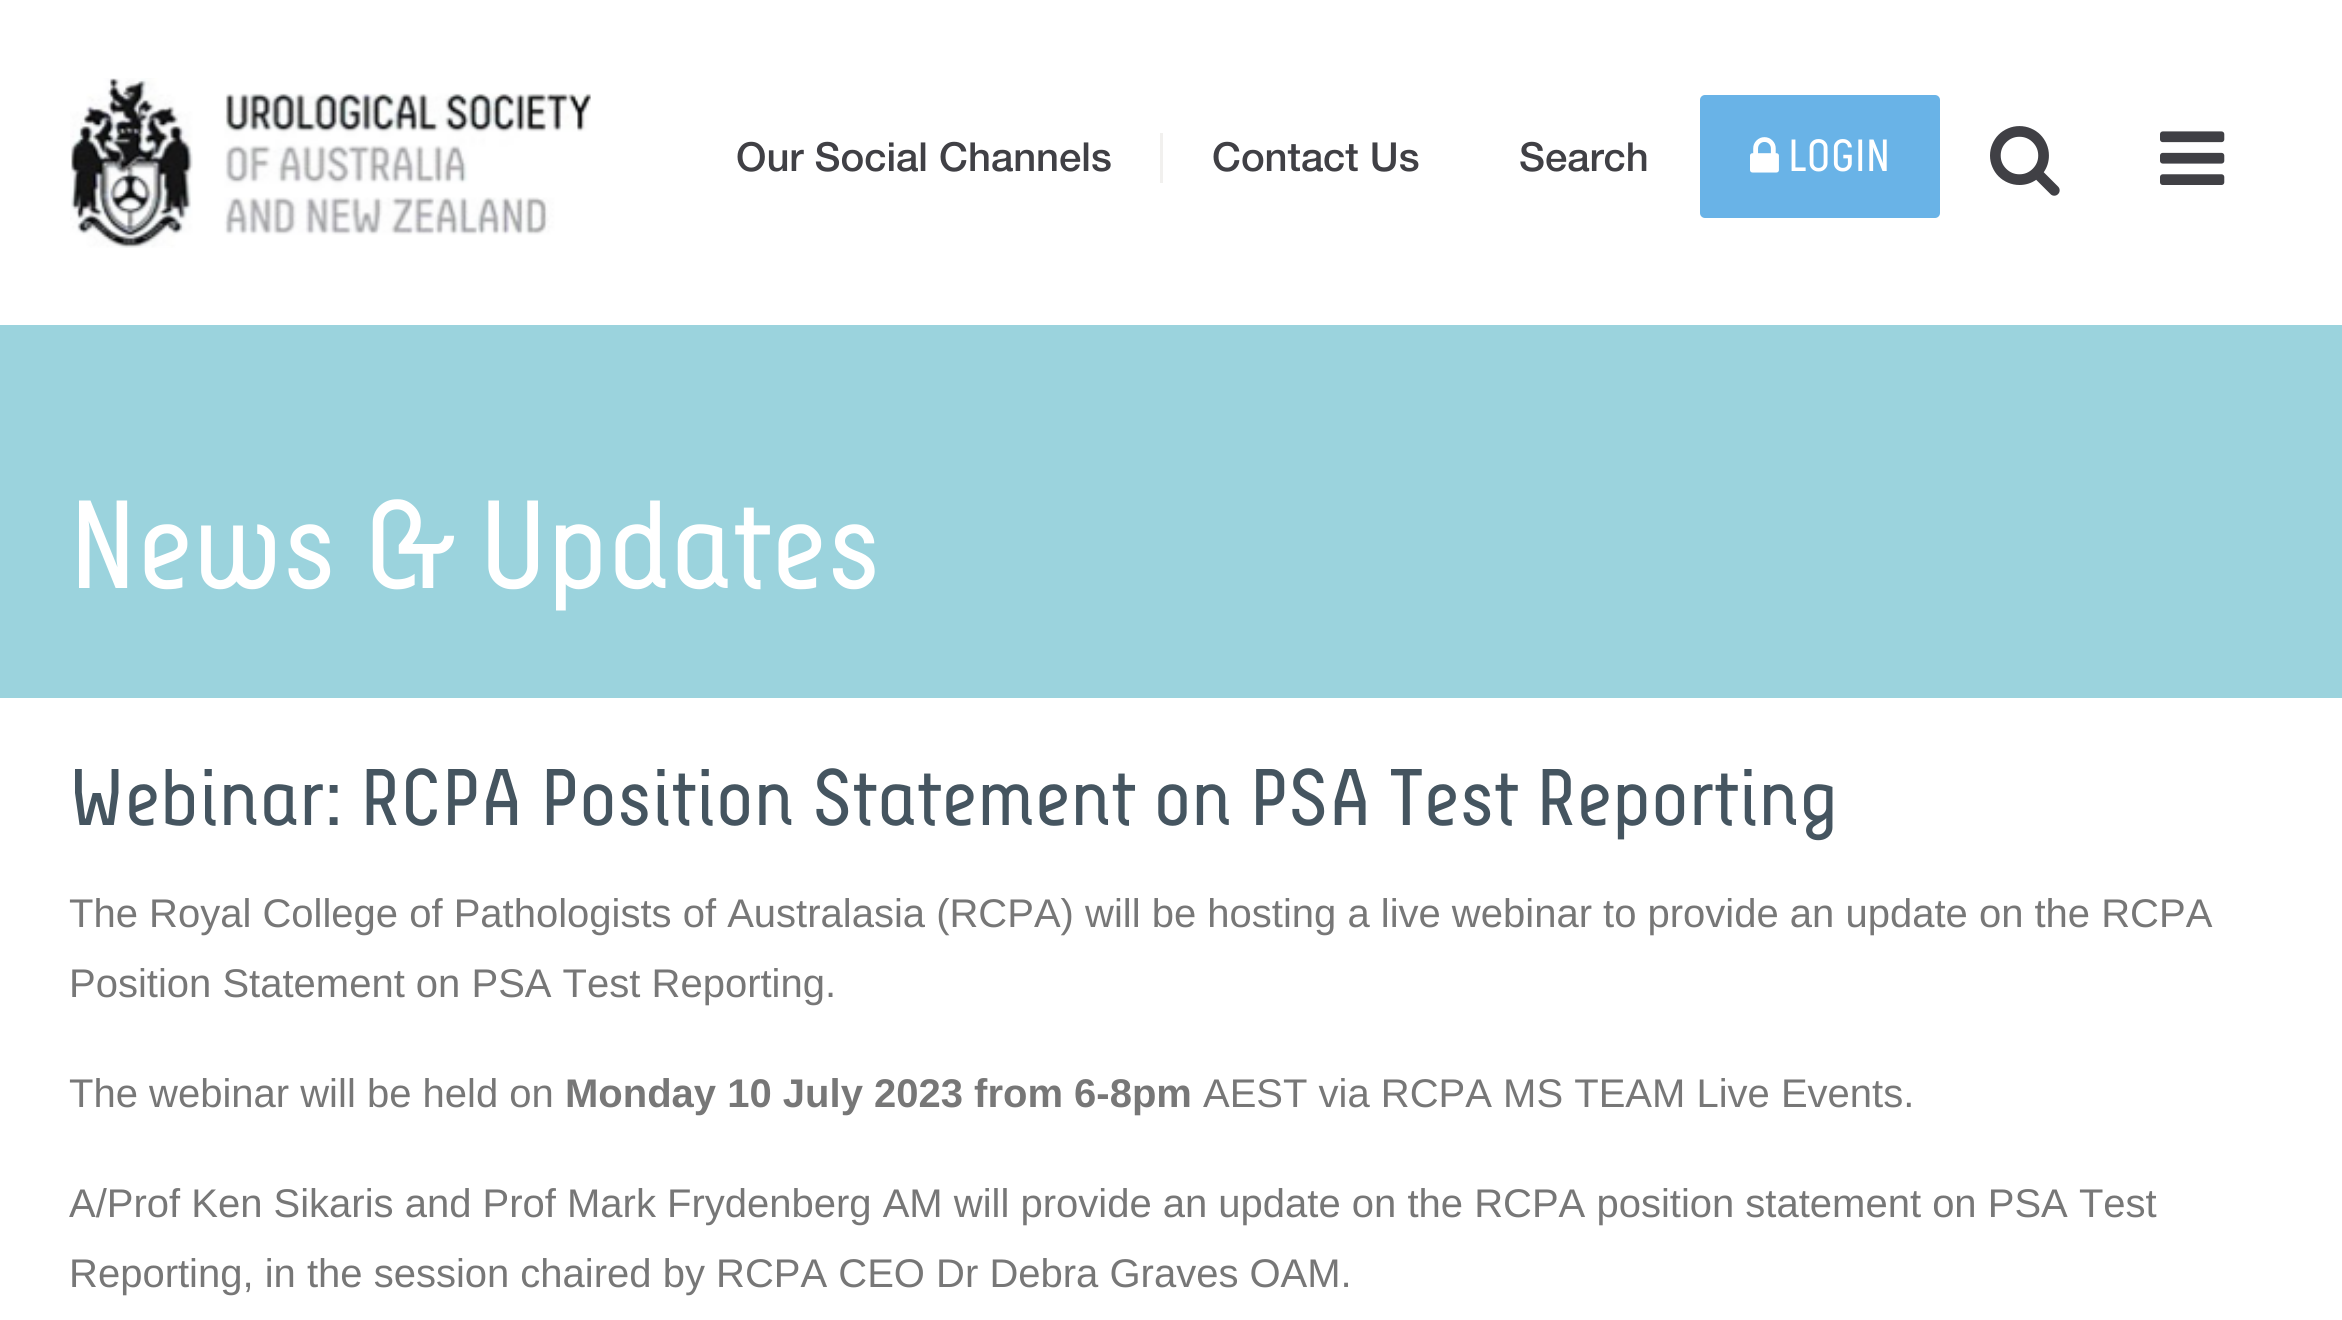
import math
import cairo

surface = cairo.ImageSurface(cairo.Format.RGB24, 2342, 1320)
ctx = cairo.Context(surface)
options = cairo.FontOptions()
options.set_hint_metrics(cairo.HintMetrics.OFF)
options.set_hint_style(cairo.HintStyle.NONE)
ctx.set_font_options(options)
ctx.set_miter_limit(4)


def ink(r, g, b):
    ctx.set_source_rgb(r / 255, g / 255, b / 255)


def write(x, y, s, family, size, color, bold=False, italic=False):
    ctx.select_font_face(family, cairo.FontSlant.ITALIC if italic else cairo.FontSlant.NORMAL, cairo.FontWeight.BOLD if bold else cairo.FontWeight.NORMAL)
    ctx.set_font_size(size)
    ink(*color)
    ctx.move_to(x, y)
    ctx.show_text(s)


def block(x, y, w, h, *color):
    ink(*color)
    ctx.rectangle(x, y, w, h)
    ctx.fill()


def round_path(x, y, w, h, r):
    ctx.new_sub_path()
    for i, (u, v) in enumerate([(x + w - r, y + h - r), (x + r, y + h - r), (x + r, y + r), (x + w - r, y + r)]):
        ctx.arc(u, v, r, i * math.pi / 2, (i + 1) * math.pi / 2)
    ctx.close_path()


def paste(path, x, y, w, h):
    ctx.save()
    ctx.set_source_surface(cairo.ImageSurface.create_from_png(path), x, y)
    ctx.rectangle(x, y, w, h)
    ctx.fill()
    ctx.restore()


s1 = dict(family="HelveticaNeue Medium", size=40, color=(64, 64, 69))
s2 = dict(family="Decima", size=45, color=(255, 255, 255))
s3 = dict(family="Decima", size=125, color=(255, 255, 255))
s4 = dict(family="Decima", size=80, color=(69, 85, 96))
s5 = dict(family="Liberation Sans", size=40, color=(119, 119, 119))
s6 = dict(family="Liberation Sans", size=40, color=(119, 119, 119), bold=True)

ink(255, 255, 255)
ctx.paint()
paste("pic1.png", 70, 78, 521, 170)
write(736, 171, "Our Social Channels", **s1)
block(1160, 133, 3, 50, 241, 240, 238)
write(1212, 171, "Contact Us", **s1)
write(1519, 171, "Search", **s1)
ink(105, 179, 231)
round_path(1700, 95, 240, 123, 5)
ctx.fill()
paste("pic2.png", 1750, 137, 29, 36)
write(1788, 171, "LOGIN", **s2)
paste("pic3.png", 1990, 126, 70, 70)
paste("pic4.png", 2160, 131, 65, 54)
block(0, 325, 2342, 373, 155, 211, 221)
write(69, 588, "News & Updates", **s3)
write(69, 825, "Webinar: RCPA Position Statement on PSA Test Reporting", **s4)
write(69, 927, "The Royal College of Pathologists of Australasia (RCPA) will be hosting a live webinar to provide an update on the RCPA", **s5)
write(69, 997, "Position Statement on PSA Test Reporting.", **s5)
write(69, 1107, "The webinar will be held on", **s5)
write(565, 1107, "Monday 10 July 2023 from 6-8pm", **s6)
write(1203, 1107, "AEST via RCPA MS TEAM Live Events.", **s5)
write(69, 1217, "A/Prof Ken Sikaris and Prof Mark Frydenberg AM will provide an update on the RCPA position statement on PSA Test", **s5)
write(69, 1287, "Reporting, in the session chaired by RCPA CEO Dr Debra Graves OAM.", **s5)
surface.write_to_png("screenshot.png")
